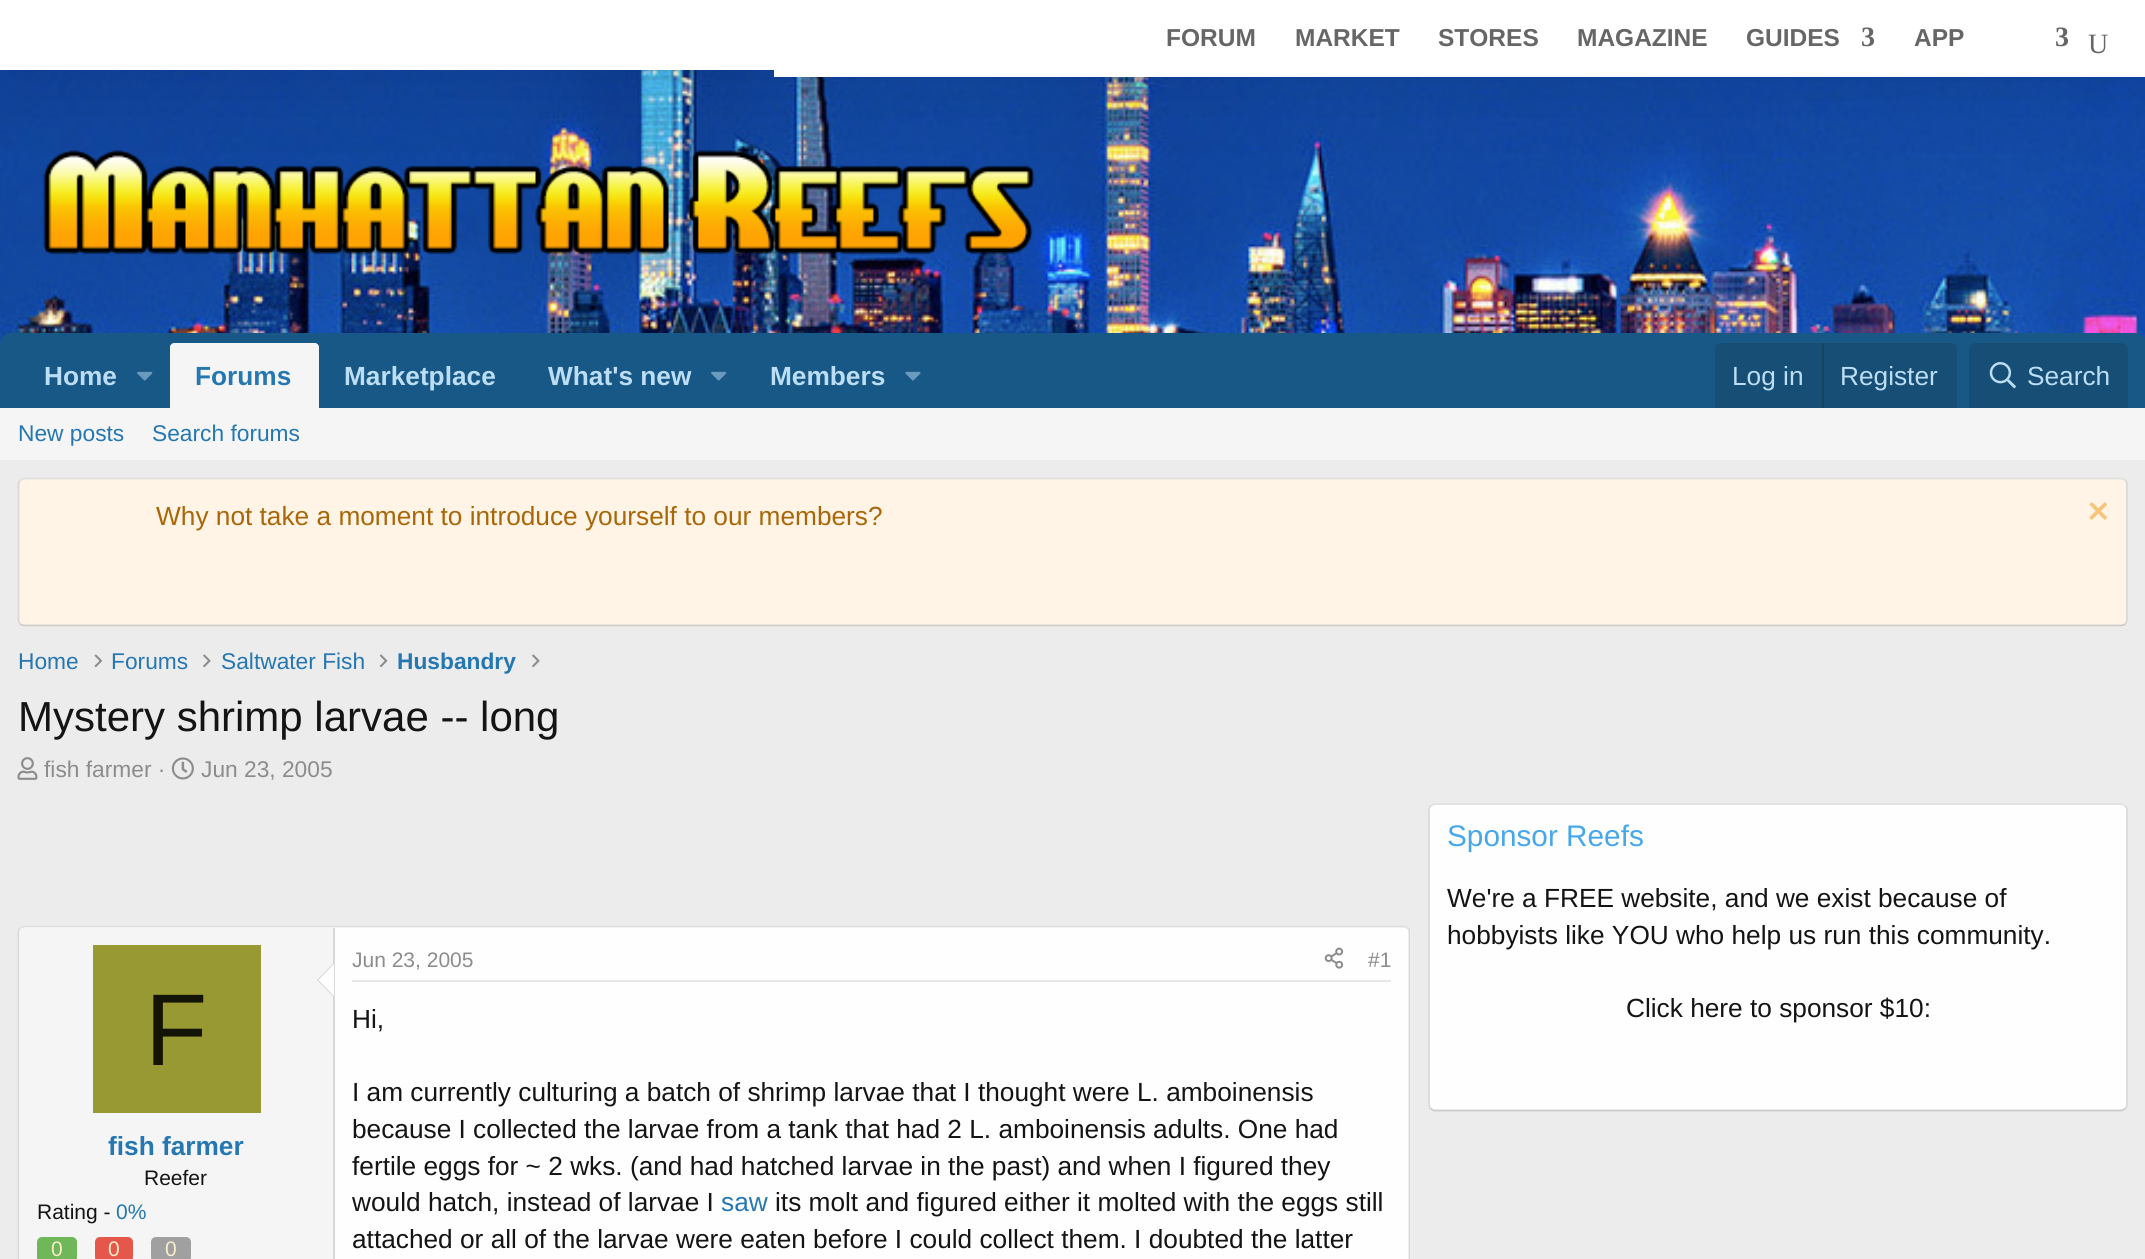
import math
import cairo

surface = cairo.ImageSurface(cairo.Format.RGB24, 2145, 1259)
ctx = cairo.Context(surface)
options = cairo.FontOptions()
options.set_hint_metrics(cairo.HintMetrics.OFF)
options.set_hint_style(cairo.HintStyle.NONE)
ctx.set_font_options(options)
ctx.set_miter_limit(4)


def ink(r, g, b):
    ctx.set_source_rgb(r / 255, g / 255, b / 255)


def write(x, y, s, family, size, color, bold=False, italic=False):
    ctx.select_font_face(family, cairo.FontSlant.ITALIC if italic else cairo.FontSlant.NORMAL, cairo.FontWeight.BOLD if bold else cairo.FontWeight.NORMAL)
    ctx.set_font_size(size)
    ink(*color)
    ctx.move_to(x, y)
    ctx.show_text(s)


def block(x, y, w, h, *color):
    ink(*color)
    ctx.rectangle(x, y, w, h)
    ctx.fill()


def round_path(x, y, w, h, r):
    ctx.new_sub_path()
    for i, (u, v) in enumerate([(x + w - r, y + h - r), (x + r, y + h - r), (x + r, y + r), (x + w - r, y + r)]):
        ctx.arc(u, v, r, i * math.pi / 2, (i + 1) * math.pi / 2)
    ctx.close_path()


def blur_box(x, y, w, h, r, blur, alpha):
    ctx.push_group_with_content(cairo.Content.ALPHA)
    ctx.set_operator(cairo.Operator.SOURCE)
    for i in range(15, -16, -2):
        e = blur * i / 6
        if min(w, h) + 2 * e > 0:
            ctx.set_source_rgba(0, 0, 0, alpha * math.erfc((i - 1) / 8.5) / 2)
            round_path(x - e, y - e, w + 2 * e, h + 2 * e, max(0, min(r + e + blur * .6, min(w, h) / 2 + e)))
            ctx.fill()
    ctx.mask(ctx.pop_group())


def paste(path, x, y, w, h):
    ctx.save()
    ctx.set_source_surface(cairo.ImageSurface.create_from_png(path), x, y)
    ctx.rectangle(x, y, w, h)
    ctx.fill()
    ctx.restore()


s1 = dict(family="Liberation Sans", size=24.5, color=(102, 102, 102), bold=True)
s2 = dict(family="Liberation Serif", size=28, color=(102, 102, 102), bold=True)
s3 = dict(family="Liberation Serif", size=28, color=(102, 102, 102))
s4 = dict(family="Liberation Sans", size=26.25, color=(188, 222, 245), bold=True)
s5 = dict(family="Liberation Sans", size=26.25, color=(37, 119, 177), bold=True)
s6 = dict(family="Liberation Sans", size=26.25, color=(188, 222, 245))
s7 = dict(family="Liberation Sans", size=22.75, color=(37, 119, 177))
s8 = dict(family="Liberation Sans", size=26.25, color=(170, 103, 9))
s9 = dict(family="Liberation Sans", size=22.75, color=(37, 119, 177), bold=True)
s10 = dict(family="Liberation Sans", size=42, color=(20, 20, 20))
s11 = dict(family="Liberation Sans", size=22.75, color=(140, 140, 140))
s12 = dict(family="Liberation Sans", size=29.75, color=(71, 167, 235))
s13 = dict(family="Liberation Sans", size=26.25, color=(20, 20, 20))
s14 = dict(family="Liberation Sans", size=102, color=(19, 19, 6))
s15 = dict(family="Liberation Sans", size=21, color=(20, 20, 20))
s16 = dict(family="Liberation Sans", size=21, color=(37, 119, 177))
s17 = dict(family="Liberation Sans", size=21, color=(248, 237, 200))
s18 = dict(family="Liberation Sans", size=21, color=(140, 140, 140))
s19 = dict(family="Liberation Sans", size=26.25, color=(37, 119, 177))

ink(255, 255, 255)
ctx.paint()
paste("pic1.png", 0, 70, 2145, 274)
paste("pic2.png", 43, 150, 992, 105)
ink(0, 0, 0)
blur_box(0, 4, 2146, 70, 0, 52.5, 0.13)
block(0, 0, 2145, 70, 255, 255, 255)
block(774, 70, 1371, 7, 255, 255, 255)
write(1166, 46, "FORUM", **s1)
write(1295, 46, "MARKET", **s1)
write(1438, 46, "STORES", **s1)
write(1577, 46, "MAGAZINE", **s1)
write(1746, 46, "GUIDES", **s1)
write(1861, 46, "3", **s2)
write(1914, 46, "APP", **s1)
write(2055, 46, "3", **s2)
write(2088, 53, "U", **s3)
ink(24, 88, 134)
ctx.new_path()
ctx.move_to(11, 333)
ctx.line_to(2135, 333)
ctx.curve_to(2141, 333, 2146, 338, 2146, 344)
ctx.line_to(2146, 408)
ctx.line_to(0, 408)
ctx.line_to(0, 344)
ctx.curve_to(0, 338, 5, 333, 11, 333)
ctx.close_path()
ctx.fill()
write(44, 385, "Home", **s4)
paste("pic3.png", 137, 371, 16, 10)
ink(245, 245, 245)
ctx.new_path()
ctx.move_to(174, 343)
ctx.line_to(315, 343)
ctx.curve_to(317, 343, 319, 345, 319, 347)
ctx.line_to(319, 408)
ctx.line_to(170, 408)
ctx.line_to(170, 347)
ctx.curve_to(170, 345, 172, 343, 174, 343)
ctx.close_path()
ctx.fill()
write(195, 385, "Forums", **s5)
write(344, 385, "Marketplace", **s4)
write(548, 385, "What's new", **s4)
paste("pic3.png", 711, 371, 16, 10)
write(770, 385, "Members", **s4)
paste("pic4.png", 905, 371, 16, 10)
ink(23, 78, 117)
ctx.new_path()
ctx.move_to(1722, 343)
ctx.line_to(1950, 343)
ctx.curve_to(1954, 343, 1957, 346, 1957, 350)
ctx.line_to(1957, 408)
ctx.line_to(1715, 408)
ctx.line_to(1715, 350)
ctx.curve_to(1715, 346, 1718, 343, 1722, 343)
ctx.close_path()
ctx.fill()
write(1732, 385, "Log in", **s6)
block(1822, 343, 2, 65, 23, 69, 102)
write(1840, 385, "Register", **s6)
ink(23, 78, 117)
ctx.new_path()
ctx.move_to(1976, 343)
ctx.line_to(2121, 343)
ctx.curve_to(2125, 343, 2128, 346, 2128, 350)
ctx.line_to(2128, 408)
ctx.line_to(1969, 408)
ctx.line_to(1969, 350)
ctx.curve_to(1969, 346, 1972, 343, 1976, 343)
ctx.close_path()
ctx.fill()
paste("pic5.png", 1989, 362, 27, 27)
write(2027, 385, "Search", **s6)
block(0, 408, 2145, 52, 245, 245, 245)
write(18, 441, "New posts", **s7)
write(152, 441, "Search forums", **s7)
block(0, 460, 2145, 799, 236, 236, 236)
ink(255, 244, 229)
round_path(18, 478, 2110, 149, 7)
ctx.fill()
ctx.new_path()
ctx.move_to(20, 480.5)
ctx.curve_to(21.5, 479.5, 23, 478.5, 24.5, 478.5)
ctx.line_to(2121, 478.5)
ctx.curve_to(2122.5, 478.5, 2124, 479.5, 2125.5, 480.5)
ink(223, 223, 223)
ctx.set_line_width(1.8)
ctx.stroke()
ctx.new_path()
ctx.move_to(2125.5, 480.5)
ctx.curve_to(2126.5, 481.5, 2127, 483, 2127, 485)
ctx.line_to(2127, 619.5)
ctx.curve_to(2127, 621, 2126.5, 622.5, 2125.5, 624)
ink(216, 216, 216)
ctx.stroke()
ctx.new_path()
ctx.move_to(2125.5, 624)
ctx.curve_to(2124, 625, 2122.5, 625.5, 2121, 625.5)
ctx.line_to(24.5, 625.5)
ctx.curve_to(23, 625.5, 21.5, 625, 20, 624)
ink(203, 203, 203)
ctx.stroke()
ctx.new_path()
ctx.move_to(20, 624)
ctx.curve_to(19, 622.5, 18.5, 621, 18.5, 619.5)
ctx.line_to(18.5, 485)
ctx.curve_to(18.5, 483, 19, 481.5, 20, 480.5)
ink(216, 216, 216)
ctx.stroke()
write(156, 525, "Why not take a moment to introduce yourself to our members?", **s8)
paste("pic6.png", 2089, 502, 18, 18)
write(18, 669, "Home", **s7)
paste("pic7.png", 94, 654, 9, 14)
write(111, 669, "Forums", **s7)
paste("pic8.png", 203, 654, 8, 14)
write(221, 669, "Saltwater Fish", **s7)
paste("pic9.png", 379, 654, 9, 14)
write(397, 669, "Husbandry", **s9)
paste("pic8.png", 532, 654, 8, 14)
write(18, 731, "Mystery shrimp larvae -- long", **s10)
paste("pic10.png", 17, 757, 21, 23)
write(44, 777, "fish farmer ·", **s11)
paste("pic11.png", 171, 757, 23, 23)
write(201, 777, "Jun 23, 2005", **s11)
ink(254, 254, 254)
round_path(1428, 803, 700, 308, 7)
ctx.fill()
ctx.new_path()
ctx.move_to(1430.5, 806)
ctx.curve_to(1432, 805, 1433.5, 804, 1435, 804)
ctx.line_to(2121, 804)
ctx.curve_to(2122.5, 804, 2124, 805, 2125.5, 806)
ink(223, 223, 223)
ctx.stroke()
ctx.new_path()
ctx.move_to(2125.5, 806)
ctx.curve_to(2126.5, 807, 2127, 808.5, 2127, 810)
ctx.line_to(2127, 1104)
ctx.curve_to(2127, 1106, 2126.5, 1107.5, 2125.5, 1108.5)
ink(216, 216, 216)
ctx.stroke()
ctx.new_path()
ctx.move_to(2125.5, 1108.5)
ctx.curve_to(2124, 1109.5, 2122.5, 1110.5, 2121, 1110.5)
ctx.line_to(1435, 1110.5)
ctx.curve_to(1433.5, 1110.5, 1432, 1109.5, 1430.5, 1108.5)
ink(203, 203, 203)
ctx.stroke()
ctx.new_path()
ctx.move_to(1430.5, 1108.5)
ctx.curve_to(1429.5, 1107.5, 1429, 1106, 1429, 1104)
ctx.line_to(1429, 810)
ctx.curve_to(1429, 808.5, 1429.5, 807, 1430.5, 806)
ink(216, 216, 216)
ctx.stroke()
write(1447, 846, "Sponsor Reefs", **s12)
write(1447, 907, "We're a FREE website, and we exist because of", **s13)
write(1447, 944, "hobbyists like YOU who help us run this community.", **s13)
write(1626, 1017, "Click here to sponsor $10:", **s13)
ink(254, 254, 254)
round_path(18, 926, 1393, 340, 7)
ctx.fill()
ctx.new_path()
ctx.move_to(20, 928.5)
ctx.curve_to(21.5, 927.5, 23, 926.5, 24.5, 926.5)
ctx.line_to(1403.5, 926.5)
ctx.curve_to(1405, 926.5, 1406.5, 927.5, 1408, 928.5)
ink(223, 223, 223)
ctx.stroke()
ctx.new_path()
ctx.move_to(1408, 928.5)
ctx.curve_to(1409, 929.5, 1409.5, 931, 1409.5, 933)
ctx.line_to(1409.5, 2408)
ctx.curve_to(1409.5, 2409.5, 1409, 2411, 1408, 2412.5)
ink(216, 216, 216)
ctx.stroke()
ctx.new_path()
ctx.move_to(20, 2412.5)
ctx.curve_to(19, 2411, 18.5, 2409.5, 18.5, 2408)
ctx.line_to(18.5, 933)
ctx.curve_to(18.5, 931, 19, 929.5, 20, 928.5)
ctx.stroke()
ink(245, 245, 245)
ctx.new_path()
ctx.move_to(24, 928)
ctx.line_to(334, 928)
ctx.line_to(334, 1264)
ctx.line_to(24, 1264)
ctx.curve_to(21, 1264, 19, 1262, 19, 1259)
ctx.line_to(19, 933)
ctx.curve_to(19, 930, 21, 928, 24, 928)
ctx.close_path()
ctx.fill()
block(333, 928, 2, 331, 216, 216, 216)
ctx.new_path()
ctx.move_to(334, 962.5)
ctx.line_to(334, 997.5)
ctx.line_to(317, 980)
ctx.close_path()
ctx.fill()
ink(254, 254, 254)
ctx.new_path()
ctx.move_to(334, 964)
ctx.line_to(334, 996)
ctx.line_to(318.5, 980)
ctx.close_path()
ctx.fill()
block(93, 945, 168, 168, 153, 153, 51)
write(145, 1065, "F", **s14)
write(108, 1155, "fish farmer", **s5)
write(144, 1185, "Reefer", **s15)
write(37, 1219, "Rating -", **s15)
write(116, 1219, "0%", **s16)
ink(111, 183, 88)
round_path(37, 1237, 40, 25, 5)
ctx.fill()
write(51, 1256, "0", **s17)
ink(230, 87, 75)
round_path(95, 1237, 38, 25, 5)
ctx.fill()
write(108, 1256, "0", **s17)
ink(160, 160, 160)
round_path(151, 1237, 40, 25, 5)
ctx.fill()
write(165, 1256, "0", **s17)
block(352, 980, 1039, 2, 231, 231, 231)
write(352, 967, "Jun 23, 2005", **s18)
paste("pic12.png", 1324, 947, 20, 22)
write(1368, 967, "#1", **s18)
write(352, 1028, "Hi,", **s13)
write(352, 1101, "I am currently culturing a batch of shrimp larvae that I thought were L. amboinensis", **s13)
write(352, 1138, "because I collected the larvae from a tank that had 2 L. amboinensis adults. One had", **s13)
write(352, 1175, "fertile eggs for ~ 2 wks. (and had hatched larvae in the past) and when I figured they", **s13)
write(352, 1211, "would hatch, instead of larvae I", **s13)
write(721, 1211, "saw", **s19)
write(775, 1211, "its molt and figured either it molted with the eggs still", **s13)
write(352, 1248, "attached or all of the larvae were eaten before I could collect them. I doubted the latter", **s13)
surface.write_to_png("screenshot.png")
